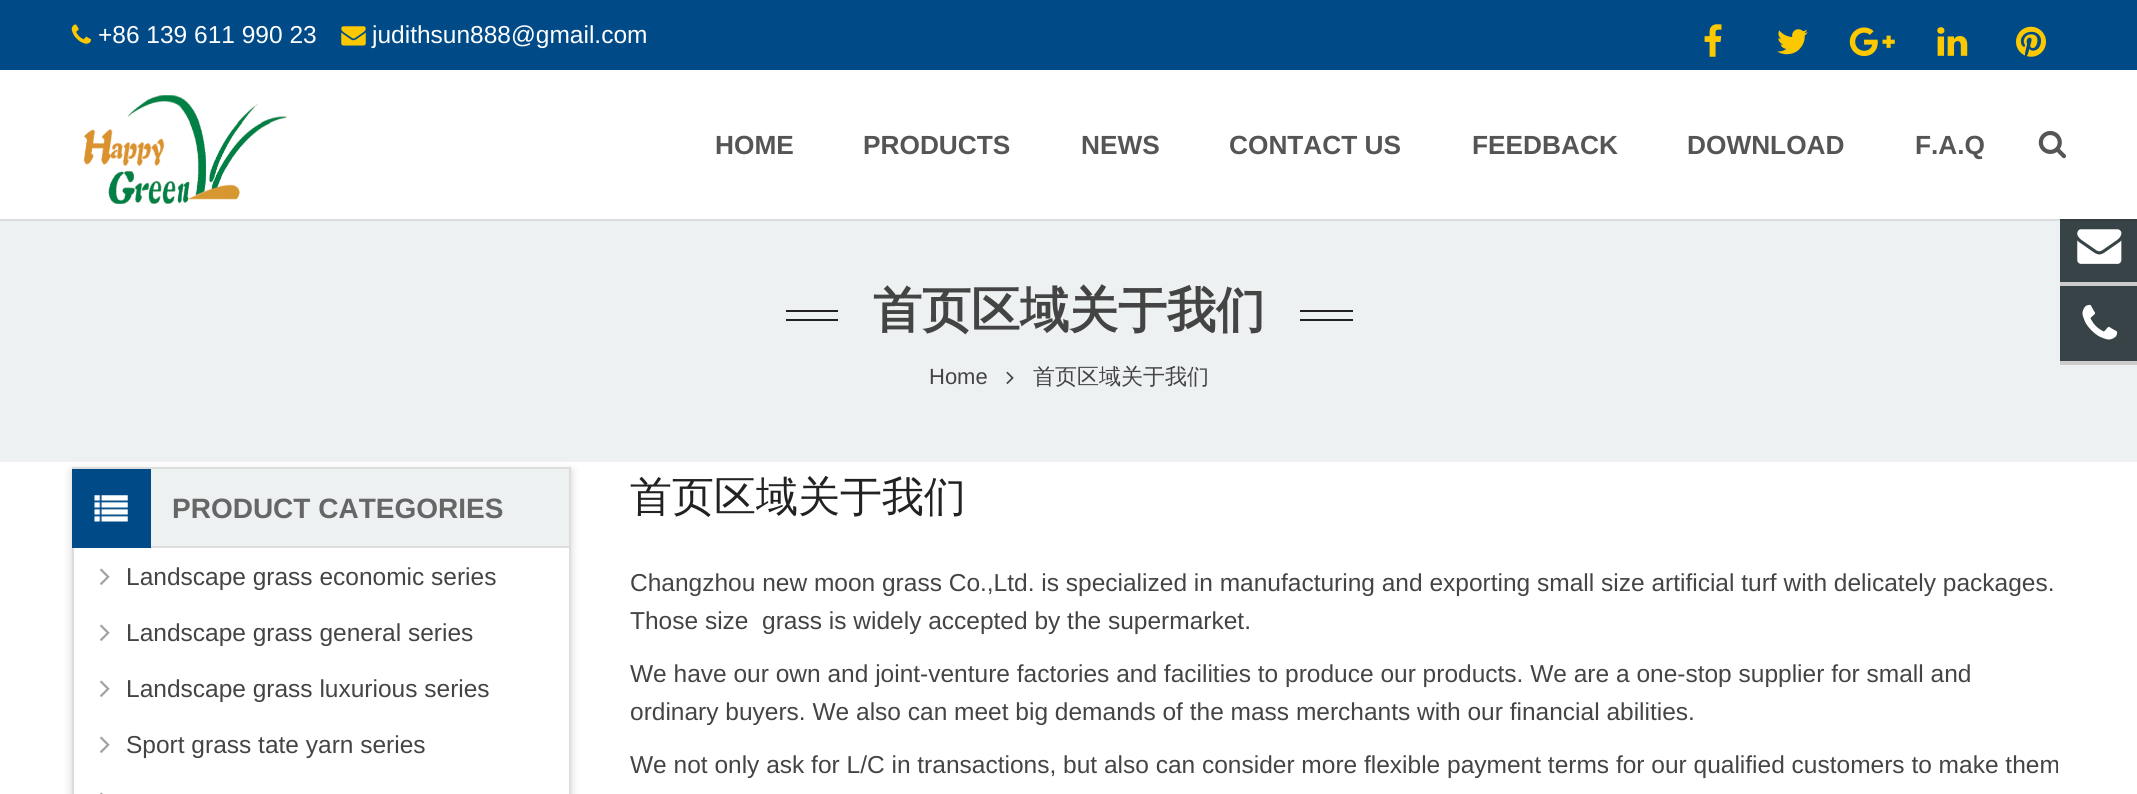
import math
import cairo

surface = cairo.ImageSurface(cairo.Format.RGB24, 2137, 794)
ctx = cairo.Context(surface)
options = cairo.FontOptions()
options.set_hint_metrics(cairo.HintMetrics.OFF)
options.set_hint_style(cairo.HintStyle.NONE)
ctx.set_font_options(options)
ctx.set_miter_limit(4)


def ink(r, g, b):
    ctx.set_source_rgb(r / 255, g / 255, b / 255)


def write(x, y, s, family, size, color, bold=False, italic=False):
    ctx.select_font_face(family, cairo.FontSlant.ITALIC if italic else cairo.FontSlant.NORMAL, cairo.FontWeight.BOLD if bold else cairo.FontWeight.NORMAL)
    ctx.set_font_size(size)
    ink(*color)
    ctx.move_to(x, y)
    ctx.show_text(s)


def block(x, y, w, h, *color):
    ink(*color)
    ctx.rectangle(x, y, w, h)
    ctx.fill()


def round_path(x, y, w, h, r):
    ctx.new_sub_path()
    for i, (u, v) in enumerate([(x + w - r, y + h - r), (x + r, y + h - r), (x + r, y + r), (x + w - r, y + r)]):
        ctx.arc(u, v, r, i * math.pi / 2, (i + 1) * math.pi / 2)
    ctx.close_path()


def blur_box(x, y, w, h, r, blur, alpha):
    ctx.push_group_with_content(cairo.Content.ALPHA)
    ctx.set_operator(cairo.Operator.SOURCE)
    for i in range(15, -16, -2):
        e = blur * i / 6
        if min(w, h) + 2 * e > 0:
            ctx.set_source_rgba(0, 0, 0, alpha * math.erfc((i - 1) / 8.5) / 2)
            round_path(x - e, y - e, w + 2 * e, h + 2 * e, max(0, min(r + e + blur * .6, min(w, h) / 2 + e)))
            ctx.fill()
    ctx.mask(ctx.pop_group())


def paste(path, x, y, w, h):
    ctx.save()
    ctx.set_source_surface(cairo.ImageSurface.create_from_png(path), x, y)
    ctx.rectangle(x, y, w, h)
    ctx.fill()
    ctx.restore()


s1 = dict(family="Liberation Sans", size=24.5, color=(255, 255, 255))
s2 = dict(family="Liberation Sans", size=26.25, color=(85, 85, 85), bold=True)
s3 = dict(family="WenQuanYi Zen Hei", size=49, color=(68, 68, 68), bold=True)
s4 = dict(family="Liberation Sans", size=22, color=(68, 68, 68))
s5 = dict(family="WenQuanYi Zen Hei Medium", size=22, color=(68, 68, 68))
s6 = dict(family="Liberation Sans", size=28, color=(102, 102, 102), bold=True)
s7 = dict(family="Liberation Sans", size=24.5, color=(68, 68, 68))
s8 = dict(family="WenQuanYi Zen Hei Medium", size=42, color=(34, 34, 34))

ink(255, 255, 255)
ctx.paint()
block(0, 0, 2137, 70, 0, 75, 135)
paste("pic1.png", 71, 24, 20, 20)
write(98, 43, "+86 139 611 990 23", **s1)
paste("pic2.png", 341, 26, 25, 20)
write(372, 43, "judithsun888@gmail.com", **s1)
paste("pic3.png", 1704, 24, 18, 33)
paste("pic4.png", 1777, 29, 31, 26)
paste("pic5.png", 1849, 27, 46, 30)
paste("pic6.png", 1937, 27, 31, 29)
paste("pic7.png", 2016, 26, 30, 31)
ctx.save()
ctx.set_fill_rule(cairo.FillRule.EVEN_ODD)
ctx.new_path()
ctx.move_to(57, 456)
ctx.line_to(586, 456)
ctx.line_to(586, 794)
ctx.line_to(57, 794)
ctx.close_path()
ctx.move_to(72, 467)
ctx.line_to(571, 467)
ctx.line_to(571, 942)
ctx.line_to(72, 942)
ctx.close_path()
ctx.clip()
ink(0, 0, 0)
blur_box(72, 471, 499, 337, 0, 4.5, 0.18)
ctx.restore()
block(0, 219, 2137, 243, 237, 241, 242)
block(2060, 219, 77, 142, 56, 67, 71)
ctx.set_source_rgba(0, 0, 0, 0.08)
ctx.new_path()
ctx.move_to(0, 219)
ctx.line_to(0, 221)
ctx.line_to(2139, 221)
ctx.line_to(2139, 72)
ctx.line_to(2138, 72)
ctx.line_to(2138, 219)
ctx.close_path()
ctx.fill()
paste("pic8.png", 83, 95, 204, 109)
write(715, 154, "HOME", **s2)
write(863, 154, "PRODUCTS", **s2)
write(1081, 154, "NEWS", **s2)
write(1229, 154, "CONTACT US", **s2)
write(1472, 154, "FEEDBACK", **s2)
write(1687, 154, "DOWNLOAD", **s2)
write(1915, 154, "F.A.Q", **s2)
paste("pic9.png", 2038, 130, 28, 29)
block(786, 310, 52, 2, 34, 34, 34)
block(786, 319, 52, 2, 34, 34, 34)
write(873, 327, "首页区域关于我们", **s3)
block(1300, 310, 53, 2, 34, 34, 34)
block(1300, 319, 53, 2, 34, 34, 34)
write(929, 384, "Home", **s4)
paste("pic10.png", 1006, 371, 8, 13)
write(1033, 384, "首页区域关于我们", **s5)
block(151, 469, 418, 77, 237, 241, 242)
block(72, 467, 499, 2, 221, 221, 221)
block(569, 467, 2, 79, 221, 221, 221)
ctx.rectangle(73, 547, 497, 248)
ctx.stroke()
block(72, 469, 79, 79, 0, 75, 135)
paste("pic11.png", 94, 495, 34, 27)
write(172, 518, "PRODUCT CATEGORIES", **s6)
paste("pic12.png", 100, 568, 10, 17)
write(126, 585, "Landscape grass economic series", **s7)
paste("pic12.png", 100, 624, 10, 17)
write(126, 641, "Landscape grass general series", **s7)
paste("pic12.png", 100, 680, 10, 17)
write(126, 697, "Landscape grass luxurious series", **s7)
paste("pic12.png", 100, 736, 10, 17)
write(126, 753, "Sport grass tate yarn series", **s7)
paste("pic13.png", 100, 792, 3, 2)
write(630, 511, "首页区域关于我们", **s8)
write(630, 591, "Changzhou new moon grass Co.,Ltd. is specialized in manufacturing and exporting small size artificial turf with delicately packages.", **s7)
write(630, 629, "Those size  grass is widely accepted by the supermarket.", **s7)
write(630, 682, "We have our own and joint-venture factories and facilities to produce our products. We are a one-stop supplier for small and", **s7)
write(630, 720, "ordinary buyers. We also can meet big demands of the mass merchants with our financial abilities.", **s7)
write(630, 773, "We not only ask for L/C in transactions, but also can consider more flexible payment terms for our qualified customers to make them", **s7)
block(2060, 282, 77, 4, 204, 204, 204)
paste("pic14.png", 2077, 229, 45, 35)
block(2060, 361, 77, 4, 204, 204, 204)
paste("pic15.png", 2082, 304, 36, 36)
surface.write_to_png("screenshot.png")
